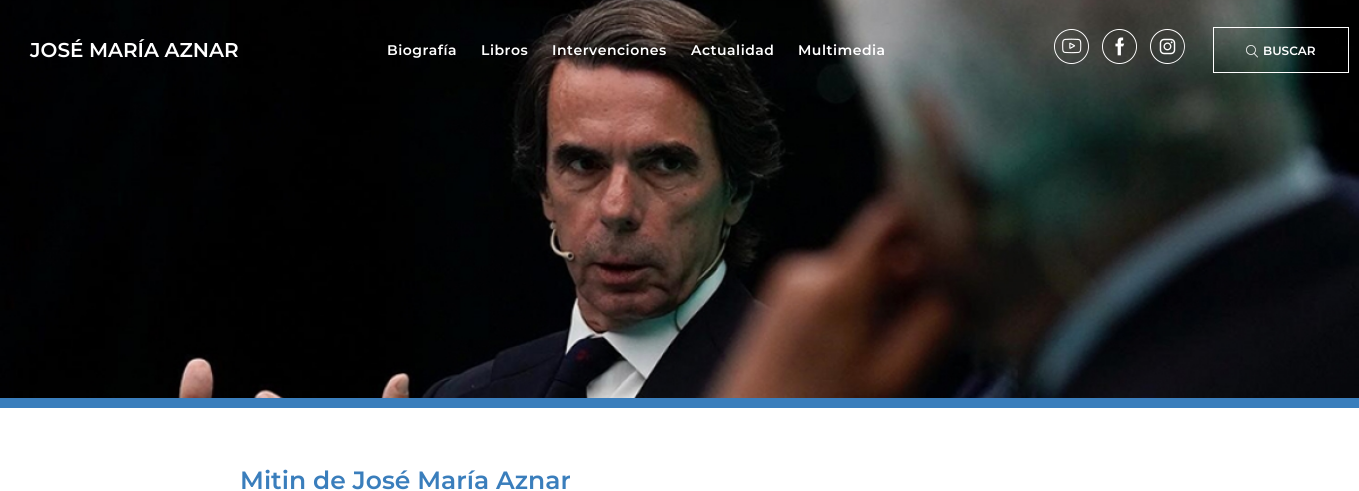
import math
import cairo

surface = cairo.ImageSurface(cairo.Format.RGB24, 1359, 491)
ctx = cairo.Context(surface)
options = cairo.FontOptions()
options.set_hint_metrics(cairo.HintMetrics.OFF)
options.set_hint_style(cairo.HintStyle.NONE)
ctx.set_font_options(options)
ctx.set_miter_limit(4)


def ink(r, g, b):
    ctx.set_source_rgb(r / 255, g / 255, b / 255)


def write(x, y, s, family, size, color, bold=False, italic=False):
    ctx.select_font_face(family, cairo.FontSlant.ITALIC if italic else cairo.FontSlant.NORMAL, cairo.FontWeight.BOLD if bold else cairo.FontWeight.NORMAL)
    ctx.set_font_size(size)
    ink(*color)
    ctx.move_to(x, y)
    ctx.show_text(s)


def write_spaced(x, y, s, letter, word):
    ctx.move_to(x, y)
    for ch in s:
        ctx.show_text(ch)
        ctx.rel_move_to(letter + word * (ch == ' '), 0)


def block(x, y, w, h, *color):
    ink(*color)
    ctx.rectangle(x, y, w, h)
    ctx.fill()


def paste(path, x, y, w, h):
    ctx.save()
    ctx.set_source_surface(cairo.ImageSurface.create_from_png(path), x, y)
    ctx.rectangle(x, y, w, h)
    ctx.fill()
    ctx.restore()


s1 = dict(family="Montserrat SemiBold", size=20, color=(255, 255, 255))
s2 = dict(family="Montserrat SemiBold", size=12, color=(255, 255, 255))
s3 = dict(family="Montserrat SemiBold", size=25, color=(58, 126, 188))

ink(255, 255, 255)
ctx.paint()
paste("pic5.png", 0, 0, 1359, 398)
write(30, 57, "JOSÉ MARÍA AZNAR", **s1)
ctx.set_font_size(14)
write_spaced(387, 55, "Biografía", 0.5, 0)
write_spaced(481, 55, "Libros", 0.5, 0)
write_spaced(552, 55, "Intervenciones", 0.5, 0)
write_spaced(691, 55, "Actualidad", 0.5, 0)
write_spaced(798, 55, "Multimedia", 0.5, 0)
paste("pic1.png", 1054, 29, 35, 35)
paste("pic2.png", 1102, 29, 35, 35)
paste("pic3.png", 1150, 29, 35, 35)
ctx.rectangle(1213.5, 27.5, 135, 45)
ctx.set_line_width(1)
ctx.stroke()
paste("pic4.png", 1246, 45, 12, 13)
write(1263, 55, "BUSCAR", **s2)
block(0, 398, 1359, 10, 58, 126, 188)
write(240, 489, "Mitin de José María Aznar", **s3)
surface.write_to_png("screenshot.png")
